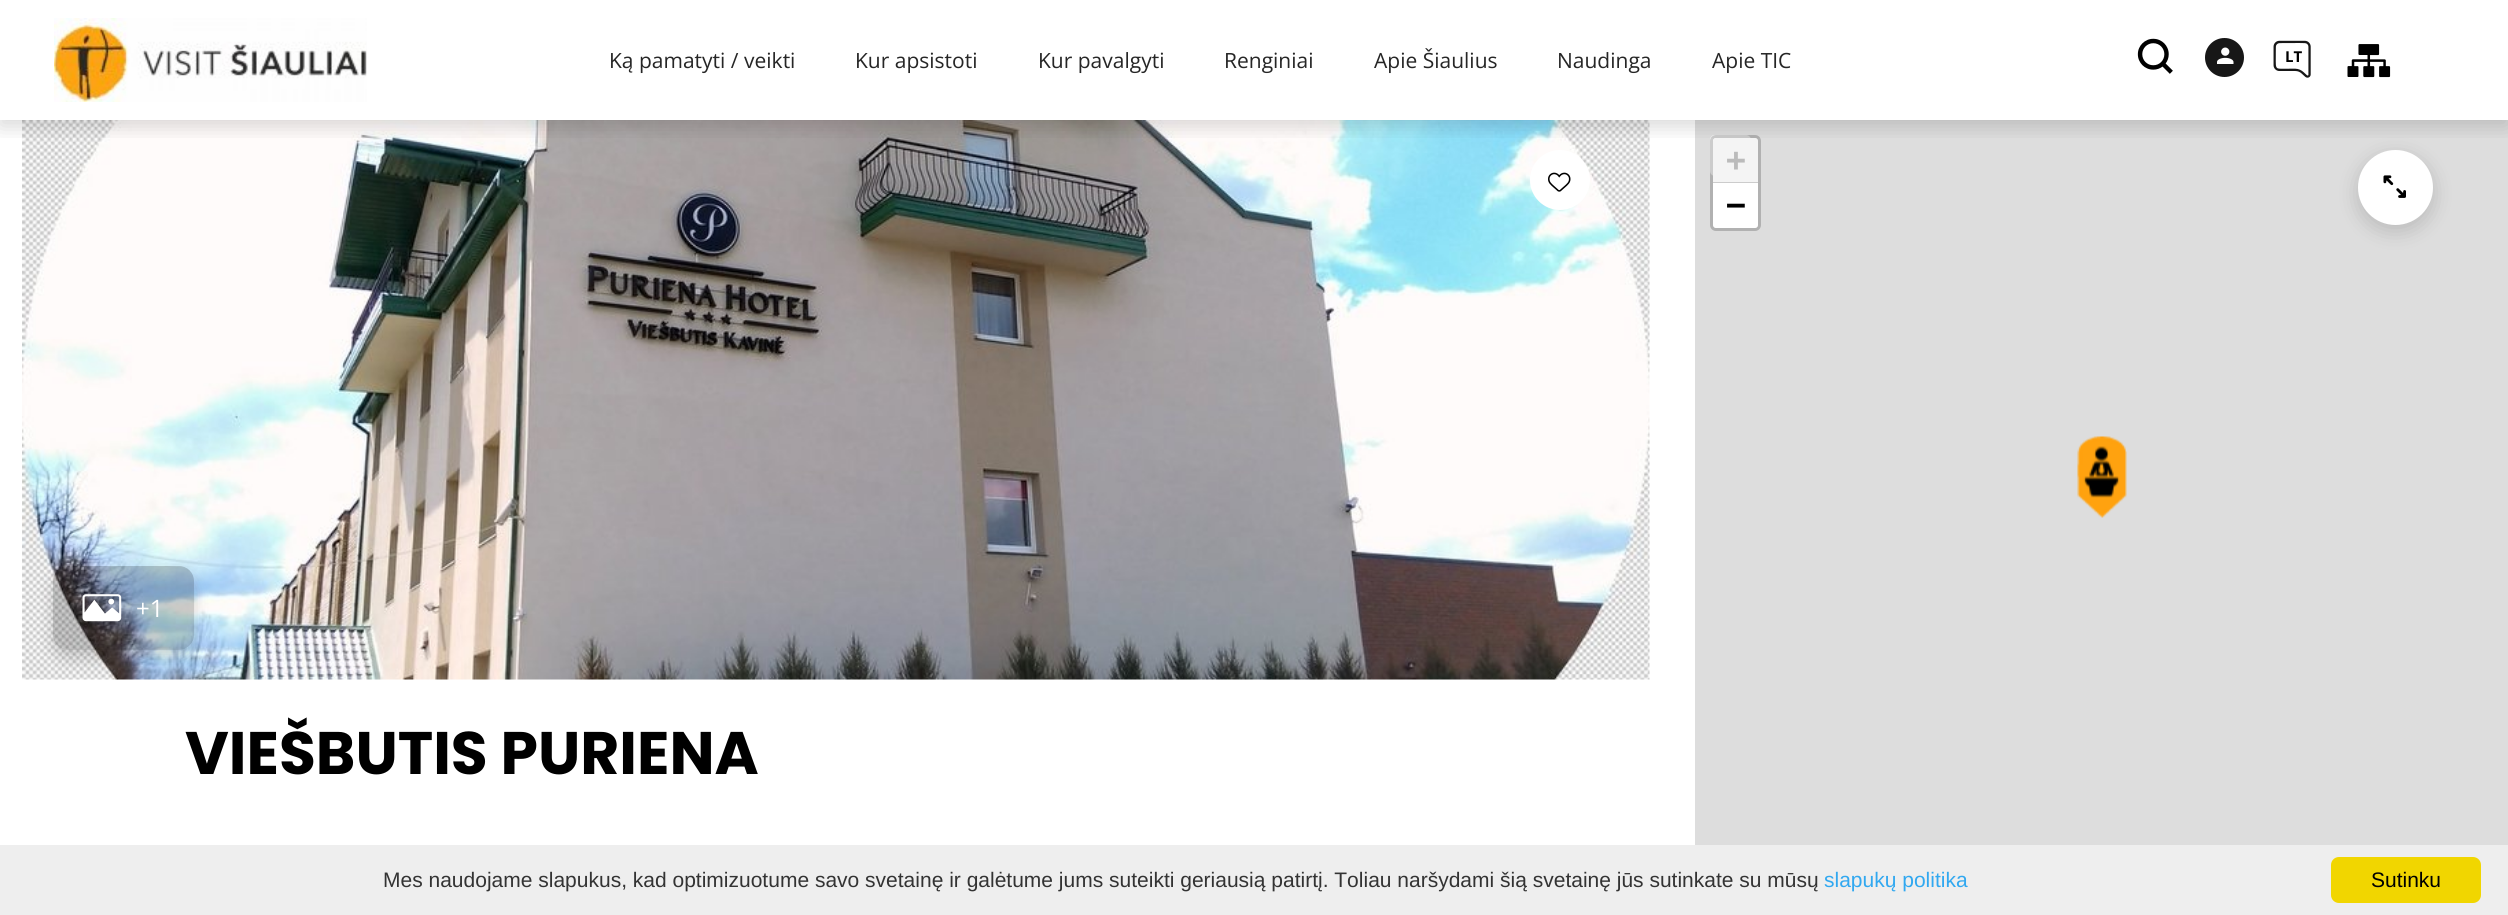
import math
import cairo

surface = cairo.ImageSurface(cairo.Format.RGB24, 2508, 915)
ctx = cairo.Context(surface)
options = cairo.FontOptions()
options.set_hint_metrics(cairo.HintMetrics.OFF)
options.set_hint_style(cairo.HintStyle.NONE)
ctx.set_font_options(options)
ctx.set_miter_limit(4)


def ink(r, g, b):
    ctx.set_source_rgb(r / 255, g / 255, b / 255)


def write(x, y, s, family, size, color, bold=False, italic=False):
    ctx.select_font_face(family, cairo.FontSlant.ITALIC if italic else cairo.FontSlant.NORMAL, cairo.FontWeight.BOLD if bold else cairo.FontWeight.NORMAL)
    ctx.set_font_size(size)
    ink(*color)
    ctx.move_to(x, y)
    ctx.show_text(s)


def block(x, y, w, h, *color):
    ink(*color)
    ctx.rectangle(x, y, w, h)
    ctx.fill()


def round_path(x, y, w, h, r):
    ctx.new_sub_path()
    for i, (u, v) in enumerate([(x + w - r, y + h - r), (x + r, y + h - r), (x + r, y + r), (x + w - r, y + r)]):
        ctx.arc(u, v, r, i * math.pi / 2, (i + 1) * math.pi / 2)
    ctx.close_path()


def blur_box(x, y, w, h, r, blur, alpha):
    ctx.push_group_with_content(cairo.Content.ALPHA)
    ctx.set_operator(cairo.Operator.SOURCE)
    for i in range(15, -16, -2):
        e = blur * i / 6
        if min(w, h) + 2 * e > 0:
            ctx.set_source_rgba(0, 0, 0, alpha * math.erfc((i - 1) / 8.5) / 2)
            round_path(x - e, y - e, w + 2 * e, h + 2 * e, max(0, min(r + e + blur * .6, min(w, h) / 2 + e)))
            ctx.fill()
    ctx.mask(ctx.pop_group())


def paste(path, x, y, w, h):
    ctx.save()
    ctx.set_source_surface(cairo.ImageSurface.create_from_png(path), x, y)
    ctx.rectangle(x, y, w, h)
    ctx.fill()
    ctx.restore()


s1 = dict(family="Open Sans", size=21, color=(38, 38, 38))
s2 = dict(family="Open Sans", size=15, color=(0, 0, 0), bold=True)
s3 = dict(family="DejaVu Sans Mono", size=33, color=(187, 187, 187), bold=True)
s4 = dict(family="DejaVu Sans Mono", size=33, color=(0, 0, 0), bold=True)
s5 = dict(family="Open Sans", size=24, color=(255, 255, 255))
s6 = dict(family="Poppins", size=60, color=(0, 0, 0), bold=True)
s7 = dict(family="Liberation Sans", size=21, color=(51, 51, 51))
s8 = dict(family="Liberation Sans", size=21, color=(49, 168, 240))
s9 = dict(family="Liberation Sans", size=21, color=(0, 0, 0))

ink(255, 255, 255)
ctx.paint()
block(1695, 120, 813, 725, 221, 221, 221)
ink(255, 255, 255)
round_path(1710, 135, 41, 41, 5)
ctx.fill()
round_path(1711.5, 136.5, 48, 93, 4.5)
ctx.set_source_rgba(0, 0, 0, 0.2)
ctx.set_line_width(3)
ctx.stroke()
ink(244, 244, 244)
ctx.new_path()
ctx.move_to(1716, 138)
ctx.line_to(1755, 138)
ctx.curve_to(1756.5, 138, 1758, 139.5, 1758, 141)
ctx.line_to(1758, 183)
ctx.line_to(1713, 183)
ctx.line_to(1713, 141)
ctx.curve_to(1713, 139.5, 1714.5, 138, 1716, 138)
ctx.close_path()
ctx.fill()
ink(0, 0, 0)
blur_box(2358, 156, 75, 75, 37.5, 10.5, 0.16)
ink(255, 255, 255)
ctx.arc(2395.5, 187.5, 37.5, 0, 2 * math.pi)
ctx.fill()
paste("pic9.png", 22, 120, 1628, 560)
ctx.arc(1560, 180, 28.5, 0, 2 * math.pi)
ctx.fill_preserve()
ctx.stroke()
ctx.save()
ctx.rectangle(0, 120, 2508, 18)
ctx.clip()
ink(0, 0, 0)
blur_box(0, 6, 2508, 120, 0, 10.5, 0.16)
ctx.restore()
paste("pic1.png", 54, 18, 313, 84)
write(609, 68, "Ką pamatyti / veikti", **s1)
write(855, 68, "Kur apsistoti", **s1)
write(1038, 68, "Kur pavalgyti", **s1)
write(1224, 68, "Renginiai", **s1)
write(1374, 68, "Apie Šiaulius", **s1)
write(1557, 68, "Naudinga", **s1)
write(1712, 68, "Apie TIC", **s1)
paste("pic2.png", 2137, 38, 36, 36)
ink(23, 23, 23)
ctx.arc(2224.5, 57.5, 19.5, 0, 2 * math.pi)
ctx.fill()
paste("pic3.png", 2217, 47, 17, 17)
write(2285, 62, "LT", **s2)
paste("pic4.png", 2273, 40, 38, 38)
paste("pic5.png", 2347, 44, 44, 34)
block(1713, 182, 45, 1, 204, 204, 204)
write(1726, 171, "+", **s3)
ink(255, 255, 255)
ctx.new_path()
ctx.move_to(1713, 183)
ctx.line_to(1758, 183)
ctx.line_to(1758, 225)
ctx.curve_to(1758, 226.5, 1756.5, 228, 1755, 228)
ctx.line_to(1716, 228)
ctx.curve_to(1714.5, 228, 1713, 226.5, 1713, 225)
ctx.close_path()
ctx.fill()
write(1726, 216, "−", **s4)
paste("pic6.png", 2077, 436, 50, 82)
paste("pic7.png", 2383, 175, 23, 23)
paste("pic8.png", 1548, 172, 23, 20)
ctx.save()
ctx.set_fill_rule(cairo.FillRule.EVEN_ODD)
ctx.new_path()
ctx.move_to(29, 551)
ctx.line_to(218, 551)
ctx.line_to(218, 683)
ctx.line_to(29, 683)
ctx.close_path()
ctx.move_to(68, 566)
ctx.line_to(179, 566)
ctx.curve_to(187.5, 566, 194, 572.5, 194, 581)
ctx.line_to(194, 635)
ctx.curve_to(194, 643.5, 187.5, 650, 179, 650)
ctx.line_to(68, 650)
ctx.curve_to(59.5, 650, 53, 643.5, 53, 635)
ctx.line_to(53, 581)
ctx.curve_to(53, 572.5, 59.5, 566, 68, 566)
ctx.close_path()
ctx.clip()
ink(0, 0, 0)
blur_box(53, 575, 141, 84, 15, 7.5, 0.16)
ctx.restore()
ctx.set_source_rgba(0, 0, 0, 0.2)
round_path(53, 566, 141, 84, 15)
ctx.fill()
paste("pic10.png", 82, 594, 40, 28)
write(136, 617, "+1", **s5)
write(185, 774, "VIEŠBUTIS PURIENA", **s6)
block(0, 845, 2508, 70, 238, 238, 238)
write(383, 887, "Mes naudojame slapukus, kad optimizuotume savo svetainę ir galėtume jums suteikti geriausią patirtį. Toliau naršydami šią svetainę jūs sutinkate su mūsų", **s7)
write(1824, 887, "slapukų politika", **s8)
ink(241, 214, 0)
round_path(2331, 857, 150, 46, 8)
ctx.fill()
write(2371, 887, "Sutinku", **s9)
surface.write_to_png("screenshot.png")
